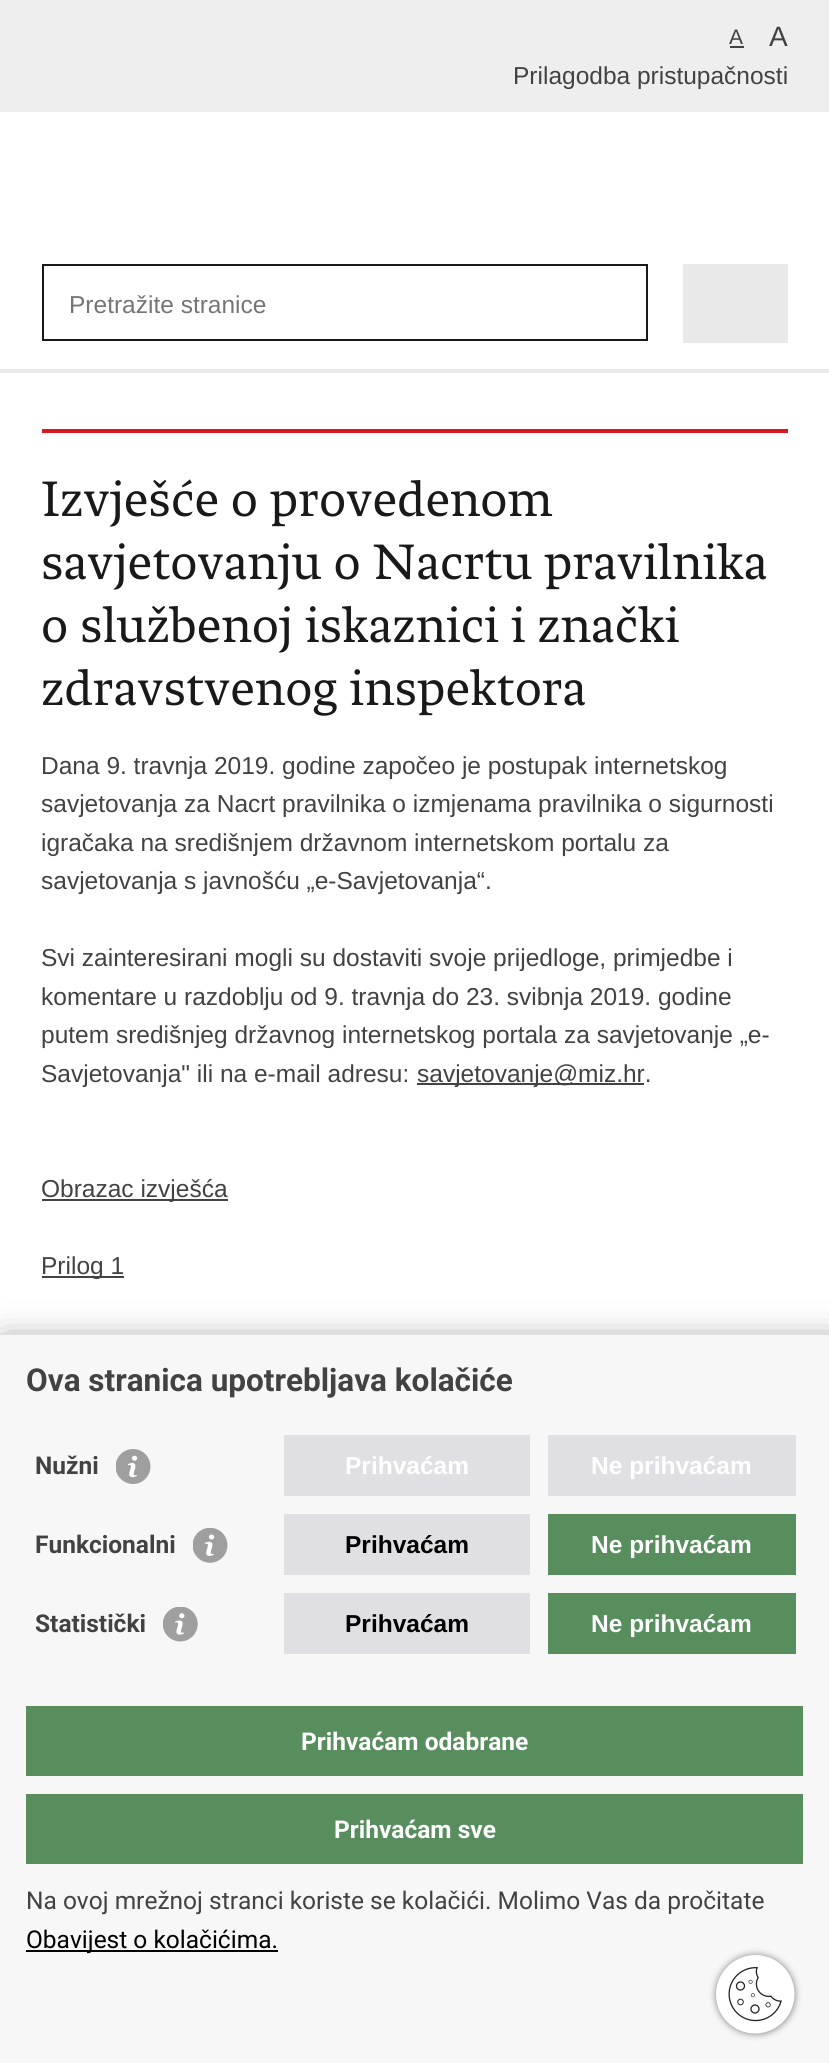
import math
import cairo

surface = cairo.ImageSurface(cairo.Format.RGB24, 829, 2063)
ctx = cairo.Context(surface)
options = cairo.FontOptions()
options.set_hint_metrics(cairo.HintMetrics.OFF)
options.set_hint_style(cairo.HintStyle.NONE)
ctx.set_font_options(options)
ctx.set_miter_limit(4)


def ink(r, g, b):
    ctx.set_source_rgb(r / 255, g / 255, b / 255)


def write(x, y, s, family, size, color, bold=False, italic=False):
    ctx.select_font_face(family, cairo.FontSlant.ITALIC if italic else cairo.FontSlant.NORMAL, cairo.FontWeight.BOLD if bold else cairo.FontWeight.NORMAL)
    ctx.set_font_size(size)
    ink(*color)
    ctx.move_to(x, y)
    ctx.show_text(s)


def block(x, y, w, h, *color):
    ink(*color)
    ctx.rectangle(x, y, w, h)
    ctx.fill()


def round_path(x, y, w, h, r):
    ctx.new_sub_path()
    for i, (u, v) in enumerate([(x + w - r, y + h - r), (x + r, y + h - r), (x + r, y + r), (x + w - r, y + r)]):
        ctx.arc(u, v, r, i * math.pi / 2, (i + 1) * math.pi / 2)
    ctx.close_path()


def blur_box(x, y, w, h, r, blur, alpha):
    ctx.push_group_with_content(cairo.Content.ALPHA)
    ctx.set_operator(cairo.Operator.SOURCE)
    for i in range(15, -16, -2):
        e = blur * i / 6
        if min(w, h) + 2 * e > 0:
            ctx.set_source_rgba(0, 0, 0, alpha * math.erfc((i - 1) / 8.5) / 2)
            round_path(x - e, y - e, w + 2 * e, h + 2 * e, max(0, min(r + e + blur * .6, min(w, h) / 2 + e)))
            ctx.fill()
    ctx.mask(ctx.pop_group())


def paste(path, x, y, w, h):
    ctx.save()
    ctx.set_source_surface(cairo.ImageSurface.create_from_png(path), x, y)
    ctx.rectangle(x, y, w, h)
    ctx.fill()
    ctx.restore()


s1 = dict(family="Liberation Sans", size=21, color=(66, 66, 66))
s2 = dict(family="Liberation Sans", size=28, color=(66, 66, 66))
s3 = dict(family="Liberation Sans", size=24.5, color=(66, 66, 66))
s4 = dict(family="Liberation Sans", size=24.5, color=(117, 117, 117))
s5 = dict(family="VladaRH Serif", size=52.5, color=(25, 25, 25))
s6 = dict(family="Roboto", size=31.5, color=(66, 66, 66), bold=True)
s7 = dict(family="Roboto", size=24.5, color=(66, 66, 66), bold=True)
s8 = dict(family="Liberation Sans", size=24.5, color=(255, 255, 255), bold=True)
s9 = dict(family="Liberation Sans", size=24.5, color=(0, 0, 0), bold=True)
s10 = dict(family="Roboto", size=24.5, color=(255, 255, 255), bold=True)
s11 = dict(family="Roboto", size=24.5, color=(66, 66, 66))
s12 = dict(family="Roboto", size=24.5, color=(0, 0, 0))

ink(255, 255, 255)
ctx.paint()
block(0, 369, 829, 4, 233, 233, 233)
block(0, 0, 829, 112, 238, 238, 238)
write(729, 44, "A", **s1)
block(730, 46, 14, 2, 66, 66, 66)
write(769, 46, "A", **s2)
write(513, 84, "Prilagodba pristupačnosti", **s3)
ctx.rectangle(43, 265, 604, 75)
ink(25, 25, 25)
ctx.stroke()
write(69, 313, "Pretražite stranice", **s4)
block(683, 264, 105, 79, 233, 233, 233)
block(42, 429, 746, 4, 215, 25, 32)
write(41, 516, "Izvješće o provedenom", **s5)
write(41, 579, "savjetovanju o Nacrtu pravilnika", **s5)
write(41, 642, "o službenoj iskaznici i znački", **s5)
write(41, 705, "zdravstvenog inspektora", **s5)
write(41, 774, "Dana 9. travnja 2019. godine započeo je postupak internetskog", **s3)
write(41, 812, "savjetovanja za Nacrt pravilnika o izmjenama pravilnika o sigurnosti", **s3)
write(41, 851, "igračaka na središnjem državnom internetskom portalu za", **s3)
write(41, 889, "savjetovanja s javnošću „e-Savjetovanja“.", **s3)
write(41, 966, "Svi zainteresirani mogli su dostaviti svoje prijedloge, primjedbe i", **s3)
write(41, 1005, "komentare u razdoblju od 9. travnja do 23. svibnja 2019. godine", **s3)
write(41, 1043, "putem središnjeg državnog internetskog portala za savjetovanje „e-", **s3)
write(41, 1082, "Savjetovanja\" ili na e-mail adresu:", **s3)
block(417, 1083, 227, 2, 66, 66, 66)
write(417, 1082, "savjetovanje@miz.hr.", **s3)
block(42, 1199, 186, 2, 66, 66, 66)
write(41, 1197, "Obrazac izvješća", **s3)
block(42, 1276, 82, 2, 66, 66, 66)
write(41, 1274, "Prilog 1", **s3)
ink(0, 0, 0)
blur_box(5, 1344, 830, 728, 0, 17.5, 0.5)
block(0, 1335, 829, 728, 247, 247, 247)
write(26, 1391, "Ova stranica upotrebljava kolačiće", **s6)
write(35, 1474, "Nužni", **s7)
paste("pic1.png", 116, 1449, 35, 35)
block(284, 1435, 246, 61, 224, 224, 228)
write(345, 1474, "Prihvaćam", **s8)
block(548, 1435, 248, 61, 224, 224, 228)
write(591, 1474, "Ne prihvaćam", **s8)
write(35, 1553, "Funkcionalni", **s7)
paste("pic2.png", 193, 1528, 35, 35)
block(284, 1514, 246, 61, 224, 224, 228)
write(345, 1553, "Prihvaćam", **s9)
block(548, 1514, 248, 61, 88, 142, 94)
write(591, 1553, "Ne prihvaćam", **s8)
write(35, 1632, "Statistički", **s7)
paste("pic3.png", 163, 1607, 35, 35)
block(284, 1593, 246, 61, 224, 224, 228)
write(345, 1632, "Prihvaćam", **s9)
block(548, 1593, 248, 61, 88, 142, 94)
write(591, 1632, "Ne prihvaćam", **s8)
block(26, 1706, 777, 70, 88, 142, 94)
write(301, 1750, "Prihvaćam odabrane", **s10)
block(26, 1794, 777, 70, 88, 142, 94)
write(334, 1838, "Prihvaćam sve", **s10)
write(26, 1909, "Na ovoj mrežnoj stranci koriste se kolačići. Molimo Vas da pročitate", **s11)
block(26, 1950, 252, 2, 0, 0, 0)
write(26, 1948, "Obavijest o kolačićima.", **s12)
ink(133, 133, 133)
blur_box(716, 1955, 79, 79, 39.5, 3.5, 1)
paste("pic4.png", 716, 1955, 79, 79)
surface.write_to_png("screenshot.png")
